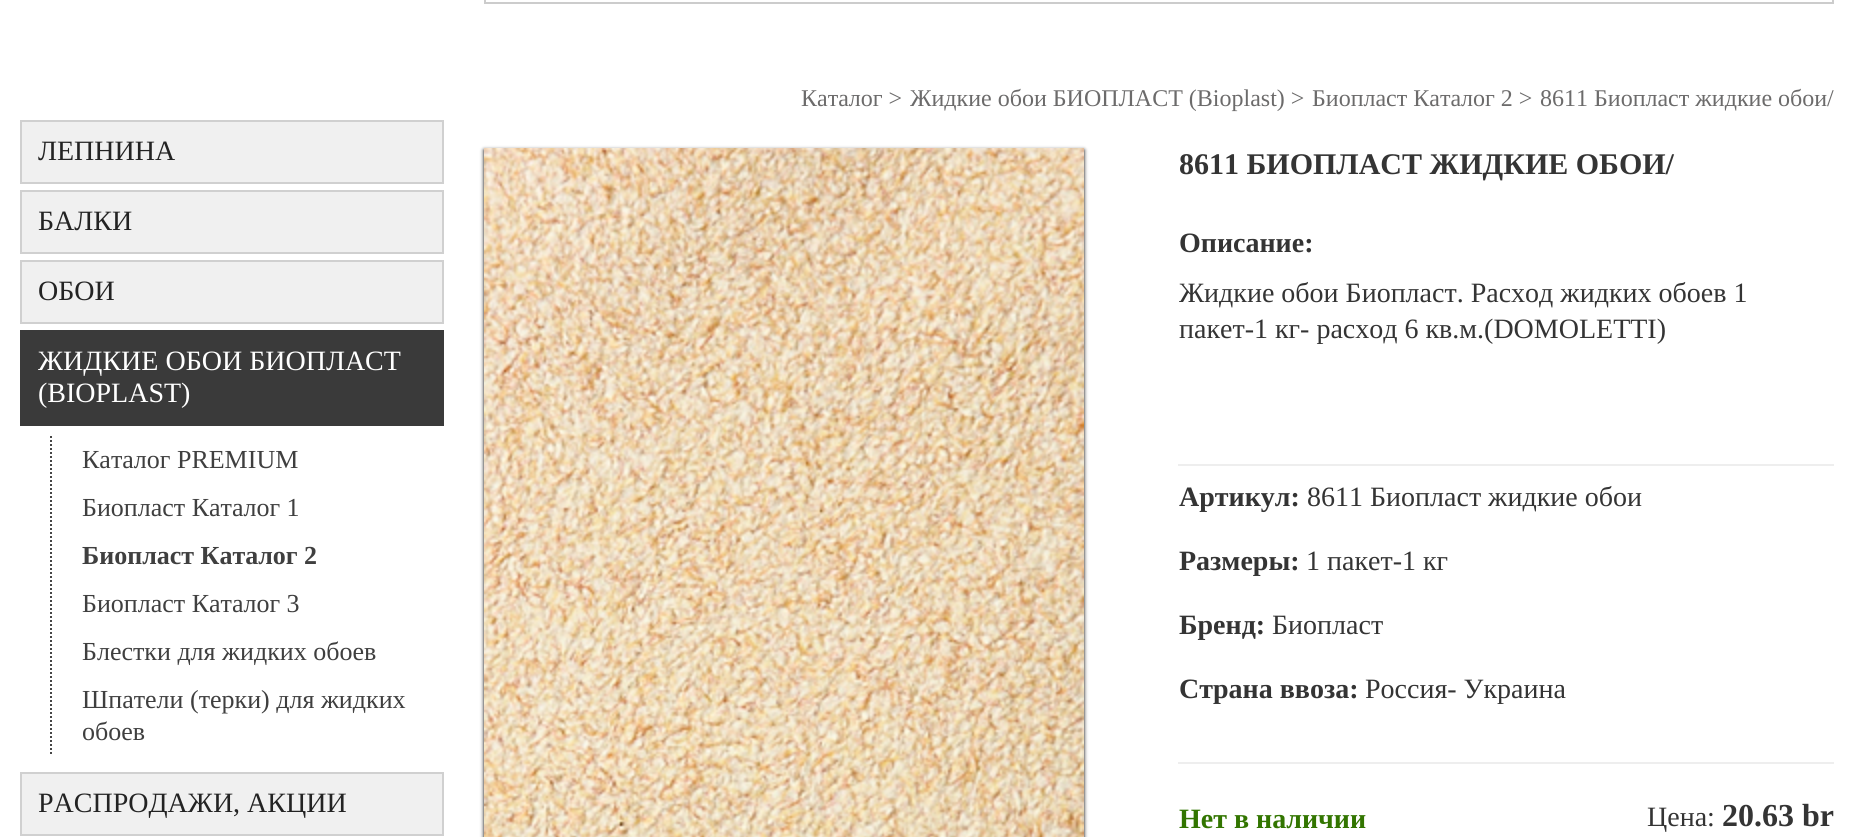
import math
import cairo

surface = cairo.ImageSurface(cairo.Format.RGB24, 1853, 837)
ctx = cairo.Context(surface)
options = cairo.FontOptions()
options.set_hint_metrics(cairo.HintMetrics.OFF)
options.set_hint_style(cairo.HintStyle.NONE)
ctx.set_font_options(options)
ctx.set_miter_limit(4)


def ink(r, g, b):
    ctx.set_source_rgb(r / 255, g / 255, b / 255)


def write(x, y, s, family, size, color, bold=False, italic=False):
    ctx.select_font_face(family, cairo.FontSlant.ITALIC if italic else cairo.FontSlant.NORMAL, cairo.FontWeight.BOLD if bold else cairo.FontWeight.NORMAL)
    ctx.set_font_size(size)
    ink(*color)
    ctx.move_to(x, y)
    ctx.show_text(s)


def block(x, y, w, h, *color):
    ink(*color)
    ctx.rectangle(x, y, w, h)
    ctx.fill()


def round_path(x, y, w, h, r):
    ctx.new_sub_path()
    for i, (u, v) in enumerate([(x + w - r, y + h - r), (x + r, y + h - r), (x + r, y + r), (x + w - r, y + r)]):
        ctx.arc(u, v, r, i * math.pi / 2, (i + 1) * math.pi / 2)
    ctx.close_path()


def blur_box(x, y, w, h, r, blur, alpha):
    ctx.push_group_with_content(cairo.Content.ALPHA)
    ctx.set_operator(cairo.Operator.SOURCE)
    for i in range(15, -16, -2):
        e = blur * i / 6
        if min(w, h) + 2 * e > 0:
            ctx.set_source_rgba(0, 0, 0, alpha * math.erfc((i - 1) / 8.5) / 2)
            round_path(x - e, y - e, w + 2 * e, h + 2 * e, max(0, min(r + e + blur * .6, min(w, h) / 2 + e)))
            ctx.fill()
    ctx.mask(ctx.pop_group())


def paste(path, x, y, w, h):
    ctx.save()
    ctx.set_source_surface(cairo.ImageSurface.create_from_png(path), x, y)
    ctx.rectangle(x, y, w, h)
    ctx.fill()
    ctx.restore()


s1 = dict(family="Liberation Serif", size=28, color=(35, 35, 35))
s2 = dict(family="Liberation Serif", size=28, color=(255, 255, 255))
s3 = dict(family="Liberation Serif", size=26, color=(63, 63, 63))
s4 = dict(family="Liberation Serif", size=26, color=(63, 63, 63), bold=True)
s5 = dict(family="Liberation Serif", size=24, color=(108, 107, 107))
s6 = dict(family="Liberation Serif", size=30, color=(52, 52, 52), bold=True)
s7 = dict(family="Liberation Serif", size=28, color=(52, 52, 52), bold=True)
s8 = dict(family="Liberation Serif", size=28, color=(52, 52, 52))
s9 = dict(family="Liberation Serif", size=28, color=(50, 117, 0), bold=True)
s10 = dict(family="Liberation Serif", size=32, color=(52, 52, 52), bold=True)

ink(255, 255, 255)
ctx.paint()
ctx.rectangle(485, -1, 1348, 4)
ink(204, 204, 204)
ctx.stroke()
ink(240, 240, 240)
ctx.rectangle(21, 121, 422, 62)
ctx.fill_preserve()
ink(208, 208, 208)
ctx.stroke()
write(38, 160, "ЛЕПНИНА", **s1)
ink(240, 240, 240)
ctx.rectangle(21, 191, 422, 62)
ctx.fill_preserve()
ink(208, 208, 208)
ctx.stroke()
write(38, 230, "БАЛКИ", **s1)
ink(240, 240, 240)
ctx.rectangle(21, 261, 422, 62)
ctx.fill_preserve()
ink(208, 208, 208)
ctx.stroke()
write(38, 300, "ОБОИ", **s1)
block(20, 330, 424, 96, 58, 58, 58)
write(38, 370, "ЖИДКИЕ ОБОИ БИОПЛАСТ", **s2)
write(38, 402, "(BIOPLAST)", **s2)
ctx.new_path()
ctx.move_to(51, 436)
ctx.line_to(51, 756)
ink(70, 70, 70)
ctx.set_dash([2, 2])
ctx.stroke()
write(82, 468, "Каталог PREMIUM", **s3)
write(82, 516, "Биопласт Каталог 1", **s3)
write(82, 564, "Биопласт Каталог 2", **s4)
write(82, 612, "Биопласт Каталог 3", **s3)
write(82, 660, "Блестки для жидких обоев", **s3)
write(82, 708, "Шпатели (терки) для жидких", **s3)
write(82, 740, "обоев", **s3)
ink(240, 240, 240)
ctx.rectangle(21, 773, 422, 62)
ctx.fill_preserve()
ink(208, 208, 208)
ctx.set_dash([])
ctx.stroke()
write(38, 812, "РАСПРОДАЖИ, АКЦИИ", **s1)
write(801, 106, "Каталог >", **s5)
write(910, 106, "Жидкие обои БИОПЛАСТ (Bioplast) >", **s5)
write(1312, 106, "Биопласт Каталог 2 >", **s5)
write(1540, 106, "8611 Биопласт жидкие обои/", **s5)
ink(0, 0, 0)
blur_box(484, 150, 600, 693, 0, 2, 1)
paste("pic1.png", 484, 148, 600, 689)
write(1179, 174, "8611 БИОПЛАСТ ЖИДКИЕ ОБОИ/", **s6)
block(1178, 464, 656, 2, 238, 238, 238)
write(1179, 252, "Описание:", **s7)
write(1179, 302, "Жидкие обои Биопласт. Расход жидких обоев 1", **s8)
write(1179, 338, "пакет-1 кг- расход 6 кв.м.(DOMOLETTI)", **s8)
block(1178, 762, 656, 2, 238, 238, 238)
write(1179, 506, "Артикул:", **s7)
write(1307, 506, "8611 Биопласт жидкие обои", **s8)
write(1179, 570, "Размеры:", **s7)
write(1306, 570, "1 пакет-1 кг", **s8)
write(1179, 634, "Бренд:", **s7)
write(1272, 634, "Биопласт", **s8)
write(1179, 698, "Страна ввоза:", **s7)
write(1365, 698, "Россия- Украина", **s8)
write(1179, 828, "Нет в наличии", **s9)
write(1647, 826, "Цена:", **s8)
write(1722, 826, "20.63 br", **s10)
surface.write_to_png("screenshot.png")
